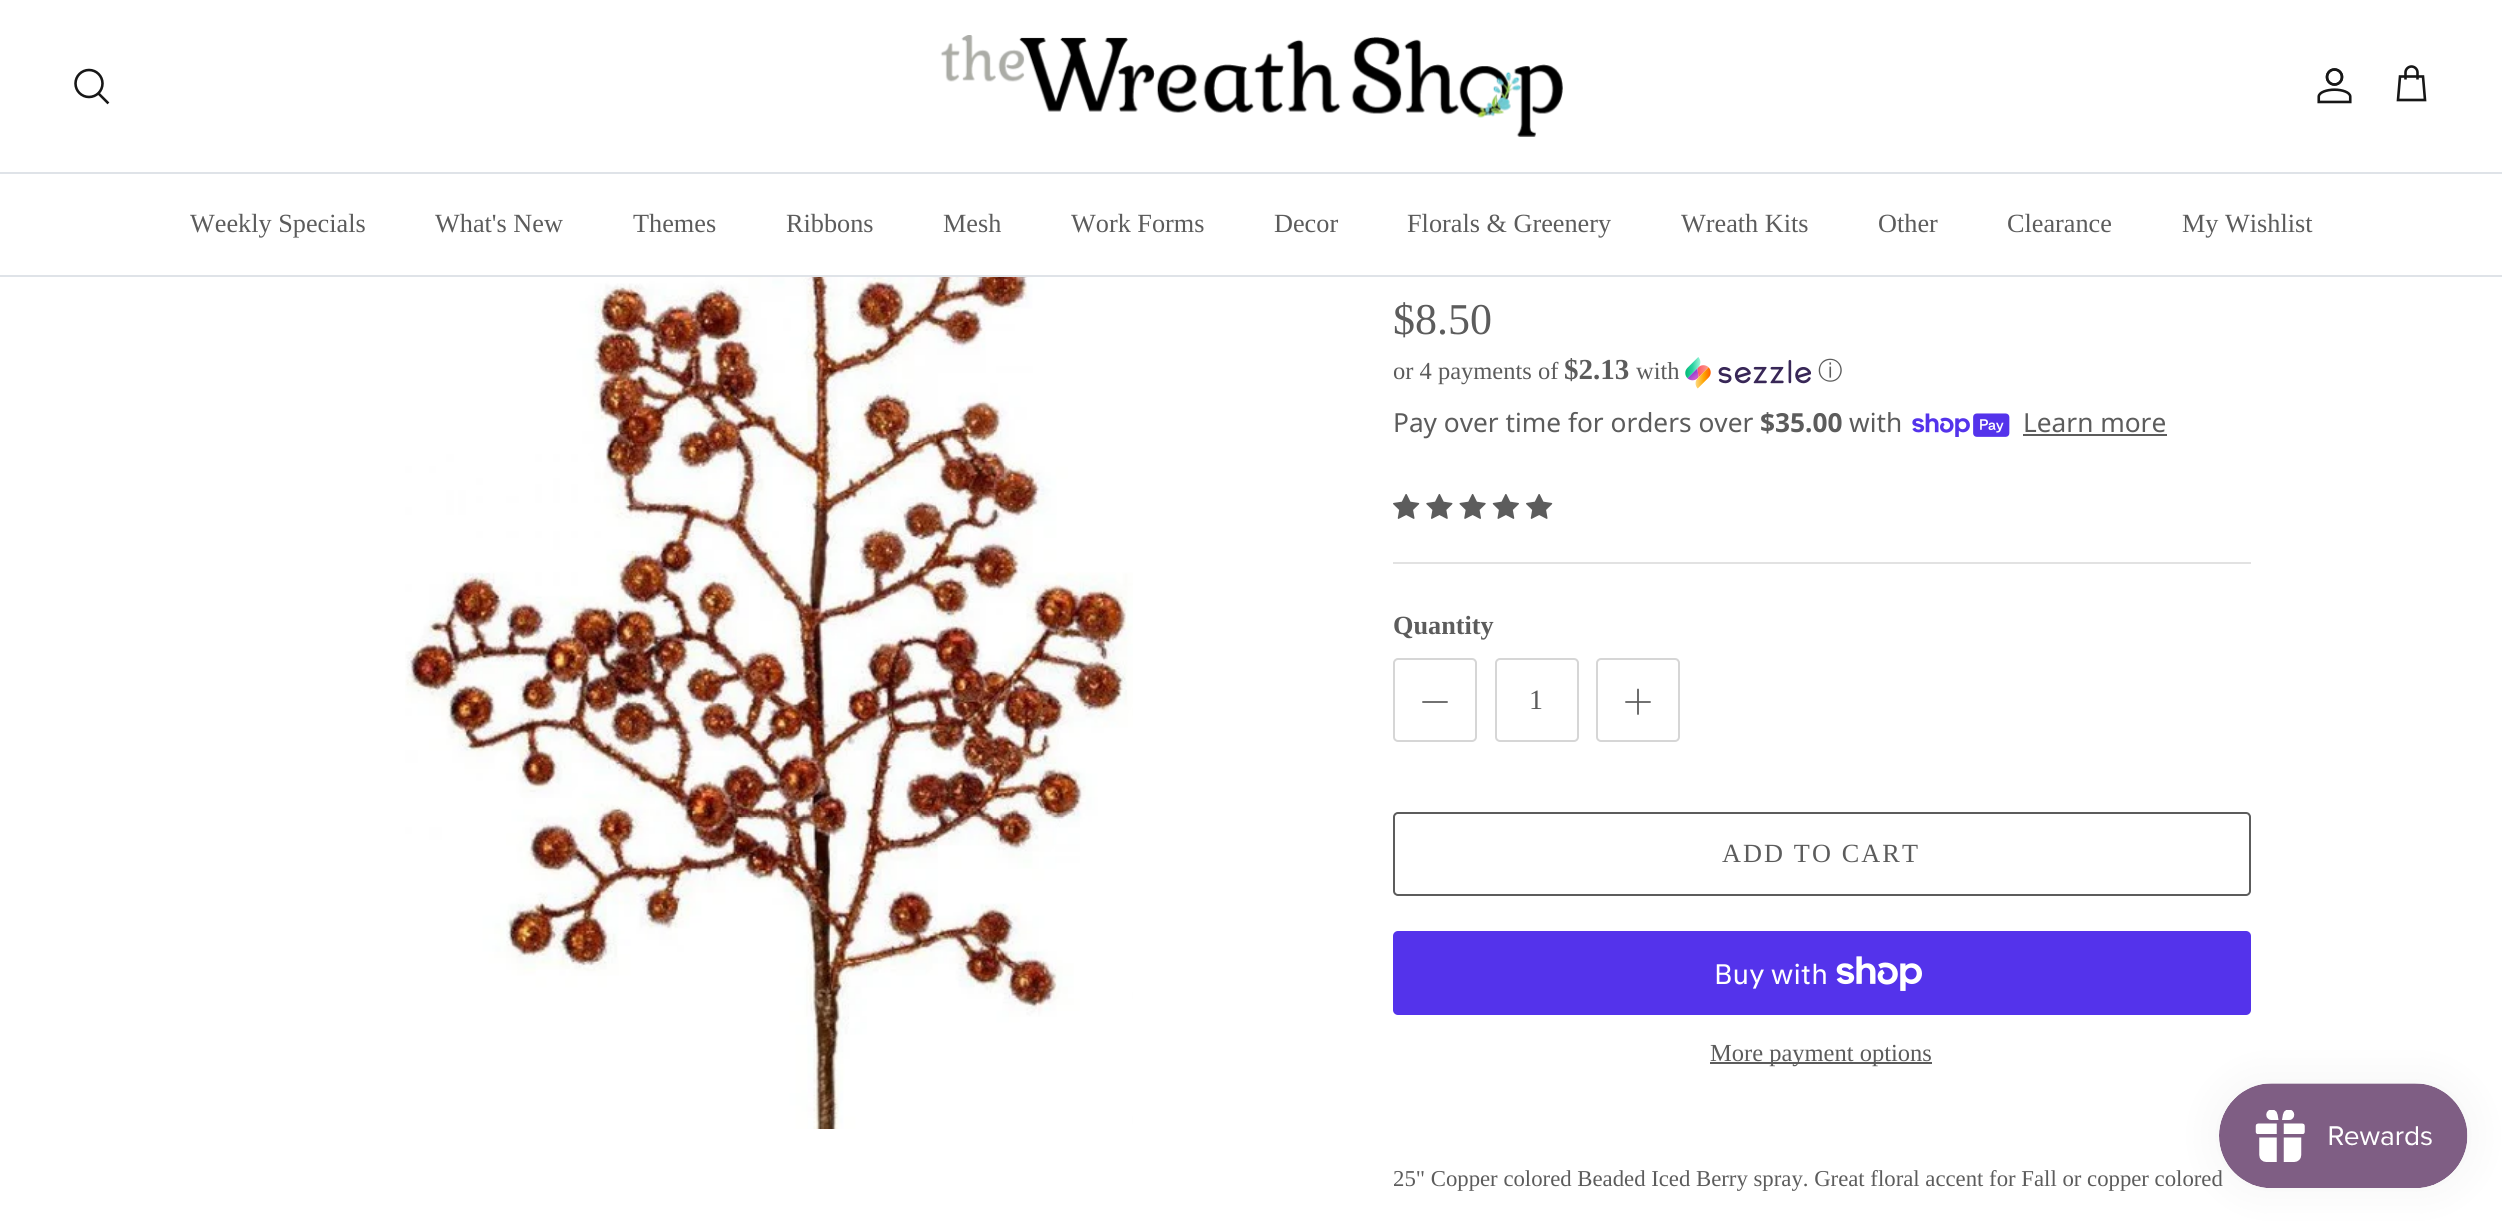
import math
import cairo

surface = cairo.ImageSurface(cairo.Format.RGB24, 2502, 1223)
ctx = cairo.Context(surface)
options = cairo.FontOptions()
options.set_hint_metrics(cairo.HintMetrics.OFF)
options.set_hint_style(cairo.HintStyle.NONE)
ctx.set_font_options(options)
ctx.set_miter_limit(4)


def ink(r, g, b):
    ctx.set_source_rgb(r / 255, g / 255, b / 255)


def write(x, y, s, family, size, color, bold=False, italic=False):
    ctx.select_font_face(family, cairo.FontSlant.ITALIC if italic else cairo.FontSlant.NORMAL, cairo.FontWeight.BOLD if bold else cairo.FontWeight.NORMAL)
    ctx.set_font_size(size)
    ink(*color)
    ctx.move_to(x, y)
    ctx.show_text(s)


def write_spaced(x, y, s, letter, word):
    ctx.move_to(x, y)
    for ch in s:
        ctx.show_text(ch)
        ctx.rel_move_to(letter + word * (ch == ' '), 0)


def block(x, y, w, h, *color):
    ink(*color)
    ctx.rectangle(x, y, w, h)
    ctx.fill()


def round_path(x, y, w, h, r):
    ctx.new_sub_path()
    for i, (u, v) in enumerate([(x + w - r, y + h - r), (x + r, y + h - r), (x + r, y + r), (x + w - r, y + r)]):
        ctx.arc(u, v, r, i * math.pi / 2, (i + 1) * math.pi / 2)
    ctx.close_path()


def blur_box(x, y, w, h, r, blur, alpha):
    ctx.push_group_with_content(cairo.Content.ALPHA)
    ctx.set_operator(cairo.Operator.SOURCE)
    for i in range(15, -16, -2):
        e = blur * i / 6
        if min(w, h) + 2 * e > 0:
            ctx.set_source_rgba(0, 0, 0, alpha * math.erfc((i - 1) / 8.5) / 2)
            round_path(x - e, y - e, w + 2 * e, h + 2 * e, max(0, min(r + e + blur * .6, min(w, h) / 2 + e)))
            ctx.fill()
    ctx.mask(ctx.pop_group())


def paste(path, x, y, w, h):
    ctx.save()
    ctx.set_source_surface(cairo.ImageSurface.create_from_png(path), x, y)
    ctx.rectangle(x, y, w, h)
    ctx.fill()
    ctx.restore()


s1 = dict(family="Liberation Serif", size=26.25, color=(92, 92, 92))
s2 = dict(family="Liberation Serif", size=44, color=(92, 92, 92))
s3 = dict(family="Liberation Serif", size=24.5, color=(92, 92, 92))
s4 = dict(family="Liberation Serif", size=29, color=(92, 92, 92), bold=True)
s5 = dict(family="WenQuanYi Zen Hei Medium", size=24.5, color=(92, 92, 92))
s6 = dict(family="Noto Sans", size=26.25, color=(92, 92, 92))
s7 = dict(family="Noto Sans", size=26.25, color=(92, 92, 92), bold=True)
s8 = dict(family="Liberation Serif", size=26.25, color=(92, 92, 92), bold=True)
s9 = dict(family="Liberation Serif", size=28, color=(92, 92, 92))
s10 = dict(family="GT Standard", size=28, color=(255, 255, 255))
s11 = dict(family="Liberation Serif", size=22.75, color=(92, 92, 92))

ink(255, 255, 255)
ctx.paint()
block(0, 172, 2502, 2, 223, 227, 232)
ctx.arc(89, 83.5, 13.5, 0, 2 * math.pi)
ink(23, 23, 23)
ctx.set_line_width(2.6)
ctx.stroke()
ctx.new_path()
ctx.move_to(99.5, 94.5)
ctx.line_to(107.5, 102.5)
ctx.set_line_cap(cairo.LineCap.SQUARE)
ctx.stroke()
paste("pic1.png", 940, 35, 623, 102)
paste("pic2.png", 2317, 68, 35, 36)
ctx.new_path()
ctx.move_to(2417.5, 79.5)
ctx.line_to(2417.5, 72.5)
ctx.curve_to(2417.5, 69, 2414.5, 66.5, 2411.5, 66.5)
ctx.curve_to(2408.5, 66.5, 2405.5, 69, 2405.5, 72.5)
ctx.line_to(2405.5, 79.5)
ctx.move_to(2400, 76.5)
ctx.line_to(2423, 76.5)
ctx.line_to(2425, 100)
ctx.line_to(2398, 100)
ctx.close_path()
ctx.set_line_cap(cairo.LineCap.BUTT)
ctx.stroke()
block(0, 275, 2502, 2, 223, 227, 232)
write(190, 232, "Weekly Specials", **s1)
write(435, 232, "What's New", **s1)
write(633, 232, "Themes", **s1)
write(786, 232, "Ribbons", **s1)
write(943, 232, "Mesh", **s1)
write(1071, 232, "Work Forms", **s1)
write(1274, 232, "Decor", **s1)
write(1407, 232, "Florals & Greenery", **s1)
write(1681, 232, "Wreath Kits", **s1)
write(1878, 232, "Other", **s1)
write(2007, 232, "Clearance", **s1)
write(2182, 232, "My Wishlist", **s1)
paste("pic3.png", 405, 277, 728, 852)
write(1393, 334, "$8.50", **s2)
write(1393, 379, "or 4 payments of", **s3)
write(1564, 379, "$2.13", **s4)
write(1636, 379, "with", **s3)
paste("pic4.png", 1685, 357, 126, 32)
write(1818, 379, "ⓘ", **s5)
write(1393, 432, "Pay over time for orders over", **s6)
write(1760, 432, "$35.00", **s7)
write(1849, 432, "with", **s6)
paste("pic5.png", 1912, 413, 98, 24)
write(2023, 432, "Learn more", **s6)
block(2023, 434, 144, 2, 92, 92, 92)
paste("pic6.png", 1393, 494, 27, 25)
paste("pic7.png", 1426, 493, 27, 26)
paste("pic8.png", 1459, 493, 27, 26)
paste("pic9.png", 1492, 494, 27, 25)
paste("pic6.png", 1526, 494, 27, 25)
block(1393, 562, 858, 2, 226, 226, 226)
write(1393, 634, "Quantity", **s8)
round_path(1394, 659, 82, 82, 4)
ink(214, 214, 214)
ctx.set_line_width(2)
ctx.stroke()
ctx.new_path()
ctx.move_to(1423, 702)
ctx.line_to(1447, 702)
ink(92, 92, 92)
ctx.set_line_width(1.8)
ctx.set_line_cap(cairo.LineCap.ROUND)
ctx.set_line_join(cairo.LineJoin.ROUND)
ctx.stroke()
round_path(1496, 659, 82, 82, 4)
ink(214, 214, 214)
ctx.set_line_width(2)
ctx.set_line_cap(cairo.LineCap.BUTT)
ctx.set_line_join(cairo.LineJoin.MITER)
ctx.stroke()
write(1529, 709, "1", **s9)
round_path(1597, 659, 82, 82, 4)
ink(214, 214, 214)
ctx.stroke()
ctx.new_path()
ctx.move_to(1638, 689.5)
ctx.line_to(1638, 714)
ctx.move_to(1626, 702)
ctx.line_to(1650, 702)
ink(92, 92, 92)
ctx.set_line_width(1.8)
ctx.set_line_cap(cairo.LineCap.ROUND)
ctx.set_line_join(cairo.LineJoin.ROUND)
ctx.stroke()
round_path(1394, 813, 856, 82, 4)
ctx.set_line_width(2)
ctx.set_line_cap(cairo.LineCap.BUTT)
ctx.set_line_join(cairo.LineJoin.MITER)
ctx.stroke()
ctx.set_font_size(26.25)
write_spaced(1722, 862, "ADD TO CART", 2.1, 0)
ink(84, 51, 235)
round_path(1393, 931, 858, 84, 5)
ctx.fill()
write(1714, 984, "Buy with", **s10)
paste("pic10.png", 1836, 956, 86, 35)
block(1710, 1062, 222, 2, 92, 92, 92)
write(1710, 1061, "More payment options", **s3)
write(1393, 1186, "25\" Copper colored Beaded Iced Berry spray. Great floral accent for Fall or copper colored", **s11)
ink(0, 0, 0)
blur_box(2219, 1083, 249, 105, 52.5, 22, 0.05)
paste("pic11.png", 2219, 1083, 249, 105)
surface.write_to_png("screenshot.png")
